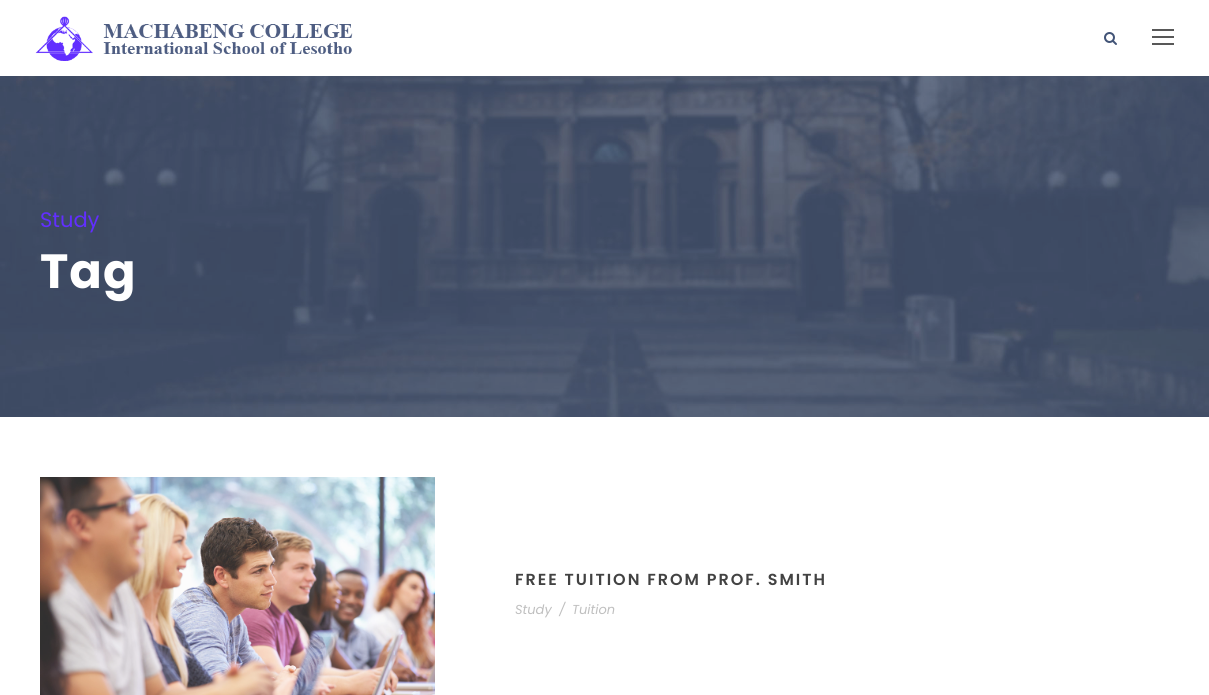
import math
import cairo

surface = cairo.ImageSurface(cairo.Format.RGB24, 1209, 695)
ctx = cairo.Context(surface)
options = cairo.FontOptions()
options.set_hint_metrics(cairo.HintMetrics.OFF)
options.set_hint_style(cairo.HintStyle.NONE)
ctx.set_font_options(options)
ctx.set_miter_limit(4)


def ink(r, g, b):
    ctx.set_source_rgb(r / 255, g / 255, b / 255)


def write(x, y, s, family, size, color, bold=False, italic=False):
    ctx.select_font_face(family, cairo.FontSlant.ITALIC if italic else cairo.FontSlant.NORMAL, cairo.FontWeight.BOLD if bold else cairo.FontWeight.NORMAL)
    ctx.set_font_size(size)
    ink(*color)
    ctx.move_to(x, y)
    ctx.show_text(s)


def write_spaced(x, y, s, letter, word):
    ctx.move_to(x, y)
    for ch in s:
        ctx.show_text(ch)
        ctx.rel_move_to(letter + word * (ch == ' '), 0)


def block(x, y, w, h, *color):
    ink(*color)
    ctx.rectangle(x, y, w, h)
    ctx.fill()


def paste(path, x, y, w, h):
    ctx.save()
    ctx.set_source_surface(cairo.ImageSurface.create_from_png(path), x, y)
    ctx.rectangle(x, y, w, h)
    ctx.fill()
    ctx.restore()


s1 = dict(family="Poppins", size=21, color=(98, 46, 255))
s2 = dict(family="Poppins", size=13, color=(191, 191, 191), italic=True)

ink(255, 255, 255)
ctx.paint()
paste("pic1.png", 35, 16, 318, 45)
paste("pic2.png", 1104, 32, 13, 13)
block(1152, 29, 22, 2, 88, 88, 88)
block(1152, 36, 22, 2, 88, 88, 88)
block(1152, 43, 22, 2, 88, 88, 88)
paste("pic3.png", 0, 76, 1209, 341)
write(40, 227, "Study", **s1)
ctx.select_font_face("Poppins", cairo.FontSlant.NORMAL, cairo.FontWeight.BOLD)
ctx.set_font_size(48)
ink(255, 255, 255)
write_spaced(40, 288, "Tag", 1, 0)
paste("pic4.png", 40, 477, 395, 218)
ctx.select_font_face("Poppins SemiBold")
ctx.set_font_size(16)
ink(66, 66, 66)
write_spaced(515, 585, "FREE TUITION FROM PROF. SMITH", 2, 0)
write(515, 614, "Study", **s2)
write(559, 614, "/", **s2)
write(572, 614, "Tuition", **s2)
surface.write_to_png("screenshot.png")
